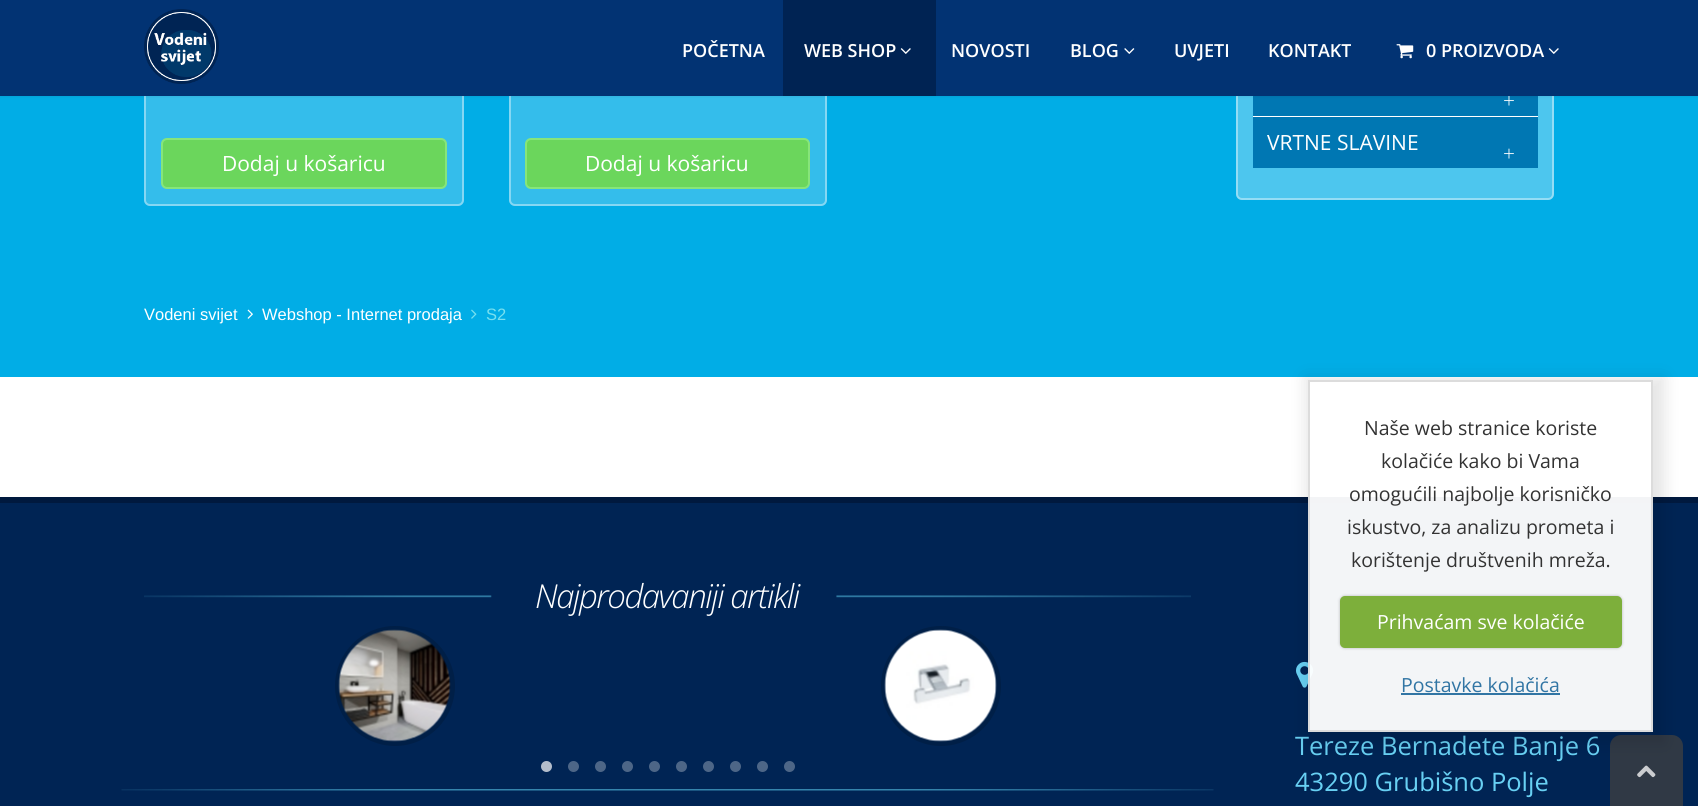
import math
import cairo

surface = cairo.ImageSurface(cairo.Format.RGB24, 1698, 806)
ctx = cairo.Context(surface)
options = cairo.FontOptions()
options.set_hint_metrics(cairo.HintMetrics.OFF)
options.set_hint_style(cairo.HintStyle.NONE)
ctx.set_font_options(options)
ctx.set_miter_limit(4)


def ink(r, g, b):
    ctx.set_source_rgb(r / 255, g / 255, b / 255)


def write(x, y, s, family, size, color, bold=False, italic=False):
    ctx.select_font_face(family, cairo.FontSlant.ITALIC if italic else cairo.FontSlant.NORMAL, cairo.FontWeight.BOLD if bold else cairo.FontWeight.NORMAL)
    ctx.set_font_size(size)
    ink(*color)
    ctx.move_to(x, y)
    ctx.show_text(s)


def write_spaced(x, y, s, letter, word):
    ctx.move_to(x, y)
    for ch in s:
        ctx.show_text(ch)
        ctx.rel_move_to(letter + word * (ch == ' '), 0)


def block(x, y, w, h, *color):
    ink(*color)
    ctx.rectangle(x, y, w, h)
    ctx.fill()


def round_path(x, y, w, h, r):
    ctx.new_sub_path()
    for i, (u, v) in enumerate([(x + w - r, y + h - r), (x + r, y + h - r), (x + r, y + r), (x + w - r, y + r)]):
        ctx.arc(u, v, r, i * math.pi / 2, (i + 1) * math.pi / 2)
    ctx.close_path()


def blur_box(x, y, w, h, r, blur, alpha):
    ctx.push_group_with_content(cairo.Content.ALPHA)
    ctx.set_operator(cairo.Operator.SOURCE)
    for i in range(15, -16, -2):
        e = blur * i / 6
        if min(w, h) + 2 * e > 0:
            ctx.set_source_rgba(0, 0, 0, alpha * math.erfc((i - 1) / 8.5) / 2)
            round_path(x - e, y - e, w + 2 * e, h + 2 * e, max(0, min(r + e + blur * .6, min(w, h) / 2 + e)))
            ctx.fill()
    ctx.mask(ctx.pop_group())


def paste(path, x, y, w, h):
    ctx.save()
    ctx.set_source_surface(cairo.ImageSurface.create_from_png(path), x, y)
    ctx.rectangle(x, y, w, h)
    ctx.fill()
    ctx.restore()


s1 = dict(family="Open Sans Light", size=21, color=(255, 255, 255))
s2 = dict(family="Open Sans SemiBold", size=18, color=(255, 255, 255))
s3 = dict(family="Open Sans", size=21, color=(255, 255, 255))
s4 = dict(family="Liberation Sans", size=16.5, color=(255, 255, 255))
s5 = dict(family="Liberation Sans", size=16.5, color=(120, 224, 239))
s6 = dict(family="Open Sans", size=25.5, color=(104, 208, 243))
s7 = dict(family="Open Sans", size=19.5, color=(51, 51, 51))
s8 = dict(family="Open Sans", size=19.5, color=(255, 255, 255))
s9 = dict(family="Open Sans", size=19.5, color=(49, 117, 164))

ink(1, 173, 230)
ctx.paint()
ink(77, 198, 238)
round_path(1236, -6, 318, 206, 6)
ctx.fill()
round_path(1237, -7, 316, 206, 5)
ctx.set_source_rgba(1, 1, 1, 0.4)
ctx.stroke()
block(1253, 96, 285, 20, 0, 119, 179)
ink(52, 189, 235)
round_path(144, -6, 320, 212, 6)
ctx.fill()
round_path(145, -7, 318, 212, 5)
ctx.set_source_rgba(1, 1, 1, 0.4)
ctx.stroke()
ink(52, 189, 235)
round_path(509, -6, 318, 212, 6)
ctx.fill()
round_path(510, -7, 316, 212, 5)
ctx.set_source_rgba(1, 1, 1, 0.4)
ctx.stroke()
ink(0, 0, 0)
blur_box(0, -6, 1698, 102, 0, 2, 0.1)
write(1503, 108, "+", **s1)
block(0, 0, 1698, 96, 2, 51, 115)
paste("pic1.png", 144, 9, 75, 75)
write(682, 57, "POČETNA", **s2)
block(783, 0, 153, 96, 0, 35, 83)
write(804, 57, "WEB SHOP", **s2)
paste("pic2.png", 900, 48, 11, 6)
write(951, 57, "NOVOSTI", **s2)
write(1070, 57, "BLOG", **s2)
paste("pic3.png", 1124, 48, 11, 6)
write(1174, 57, "UVJETI", **s2)
write(1268, 57, "KONTAKT", **s2)
paste("pic4.png", 1396, 44, 18, 15)
write(1426, 57, "0 PROIZVODA", **s2)
paste("pic5.png", 1548, 48, 11, 6)
block(1253, 116, 285, 1, 255, 255, 255)
block(1253, 117, 285, 51, 0, 119, 179)
write(1267, 150, "VRTNE SLAVINE", **s3)
write(1503, 161, "+", **s1)
ink(107, 214, 92)
round_path(162, 139, 284, 49, 5)
ctx.fill_preserve()
ink(135, 229, 122)
ctx.stroke()
write(222, 171, "Dodaj u košaricu", **s3)
ink(107, 214, 92)
round_path(526, 139, 283, 49, 5)
ctx.fill_preserve()
ink(135, 229, 122)
ctx.stroke()
write(585, 171, "Dodaj u košaricu", **s3)
write(144, 320, "Vodeni svijet", **s4)
paste("pic6.png", 247, 309, 6, 10)
write(262, 320, "Webshop - Internet prodaja", **s4)
paste("pic7.png", 471, 309, 6, 10)
write(486, 320, "S2", **s5)
block(0, 377, 1698, 120, 255, 255, 255)
block(0, 503, 1698, 303, 0, 36, 84)
block(0, 497, 1698, 6, 0, 25, 62)
paste("pic8.png", 144, 595, 1047, 3)
ctx.select_font_face("Open Sans Light", cairo.FontSlant.ITALIC)
ctx.set_font_size(33)
ink(255, 255, 255)
write_spaced(535, 608, "Najprodavaniji artikli", -1.5, 0)
paste("pic9.png", 121, 789, 1093, 2)
ink(0, 31, 71)
ctx.set_fill_rule(cairo.FillRule.EVEN_ODD)
ctx.new_path()
ctx.move_to(395, 626)
ctx.curve_to(428, 626, 455, 653, 455, 686)
ctx.curve_to(455, 719, 428, 746, 395, 746)
ctx.curve_to(362, 746, 335, 719, 335, 686)
ctx.curve_to(335, 653, 362, 626, 395, 626)
ctx.close_path()
ctx.move_to(395, 631)
ctx.curve_to(365, 631, 340, 656, 340, 686)
ctx.curve_to(340, 716, 365, 741, 395, 741)
ctx.curve_to(425, 741, 450, 716, 450, 686)
ctx.curve_to(450, 656, 425, 631, 395, 631)
ctx.close_path()
ctx.fill()
paste("pic10.png", 338, 629, 113, 113)
ctx.new_path()
ctx.move_to(941, 626)
ctx.curve_to(974, 626, 1001, 653, 1001, 686)
ctx.curve_to(1001, 719, 974, 746, 941, 746)
ctx.curve_to(908, 746, 881, 719, 881, 686)
ctx.curve_to(881, 653, 908, 626, 941, 626)
ctx.close_path()
ctx.move_to(941, 631)
ctx.curve_to(911, 631, 886, 656, 886, 686)
ctx.curve_to(886, 716, 911, 741, 941, 741)
ctx.curve_to(971, 741, 996, 716, 996, 686)
ctx.curve_to(996, 656, 971, 631, 941, 631)
ctx.close_path()
ctx.fill()
paste("pic11.png", 884, 629, 113, 113)
ink(179, 189, 204)
ctx.arc(546.5, 766.5, 6.5, 0, 2 * math.pi)
ctx.fill_preserve()
ink(0, 36, 84)
ctx.stroke()
ink(77, 102, 135)
ctx.arc(573.5, 766.5, 6.5, 0, 2 * math.pi)
ctx.fill_preserve()
ink(0, 36, 84)
ctx.stroke()
ink(77, 102, 135)
ctx.arc(600.5, 766.5, 6.5, 0, 2 * math.pi)
ctx.fill_preserve()
ink(0, 36, 84)
ctx.stroke()
ink(77, 102, 135)
ctx.arc(627.5, 766.5, 6.5, 0, 2 * math.pi)
ctx.fill_preserve()
ink(0, 36, 84)
ctx.stroke()
ink(77, 102, 135)
ctx.arc(654.5, 766.5, 6.5, 0, 2 * math.pi)
ctx.fill_preserve()
ink(0, 36, 84)
ctx.stroke()
ink(77, 102, 135)
ctx.arc(681.5, 766.5, 6.5, 0, 2 * math.pi)
ctx.fill_preserve()
ink(0, 36, 84)
ctx.stroke()
ink(77, 102, 135)
ctx.arc(708.5, 766.5, 6.5, 0, 2 * math.pi)
ctx.fill_preserve()
ink(0, 36, 84)
ctx.stroke()
ink(77, 102, 135)
ctx.arc(735.5, 766.5, 6.5, 0, 2 * math.pi)
ctx.fill_preserve()
ink(0, 36, 84)
ctx.stroke()
ink(77, 102, 135)
ctx.arc(762.5, 766.5, 6.5, 0, 2 * math.pi)
ctx.fill_preserve()
ink(0, 36, 84)
ctx.stroke()
ink(77, 102, 135)
ctx.arc(789.5, 766.5, 6.5, 0, 2 * math.pi)
ctx.fill_preserve()
ink(0, 36, 84)
ctx.stroke()
paste("pic12.png", 1296, 661, 18, 27)
write(1295, 755, "Tereze Bernadete Banje 6", **s6)
write(1295, 791, "43290 Grubišno Polje", **s6)
ink(48, 57, 69)
ctx.new_path()
ctx.move_to(1621, 735)
ctx.line_to(1672, 735)
ctx.curve_to(1678, 735, 1683, 740, 1683, 746)
ctx.line_to(1683, 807)
ctx.line_to(1610, 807)
ctx.line_to(1610, 746)
ctx.curve_to(1610, 740, 1615, 735, 1621, 735)
ctx.close_path()
ctx.fill()
paste("pic13.png", 1637, 765, 19, 13)
ctx.save()
ctx.new_path()
ctx.move_to(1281, 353)
ctx.line_to(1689, 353)
ctx.line_to(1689, 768)
ctx.line_to(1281, 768)
ctx.close_path()
ctx.move_to(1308, 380)
ctx.line_to(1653, 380)
ctx.line_to(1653, 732)
ctx.line_to(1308, 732)
ctx.close_path()
ctx.clip()
ink(0, 0, 0)
blur_box(1305, 377, 360, 367, 0, 7.5, 0.1)
ctx.restore()
ctx.set_source_rgba(1, 1, 1, 0.95)
ctx.rectangle(1310, 497, 341, 233)
ctx.fill()
ctx.rectangle(1309, 381, 343, 350)
ink(220, 220, 220)
ctx.stroke()
write(1364, 435, "Naše web stranice koriste", **s7)
write(1381, 468, "kolačiće kako bi Vama", **s7)
write(1349, 501, "omogućili najbolje korisničko", **s7)
write(1347, 534, "iskustvo, za analizu prometa i", **s7)
write(1351, 567, "korištenje društvenih mreža.", **s7)
ink(0, 0, 0)
blur_box(1340, 596, 282, 52, 5, 1.5, 0.25)
ink(125, 175, 59)
round_path(1340, 596, 282, 52, 5)
ctx.fill()
write(1377, 629, "Prihvaćam sve kolačiće", **s8)
write(1401, 692, "Postavke kolačića", **s9)
block(1401, 693, 159, 2, 49, 117, 164)
surface.write_to_png("screenshot.png")
